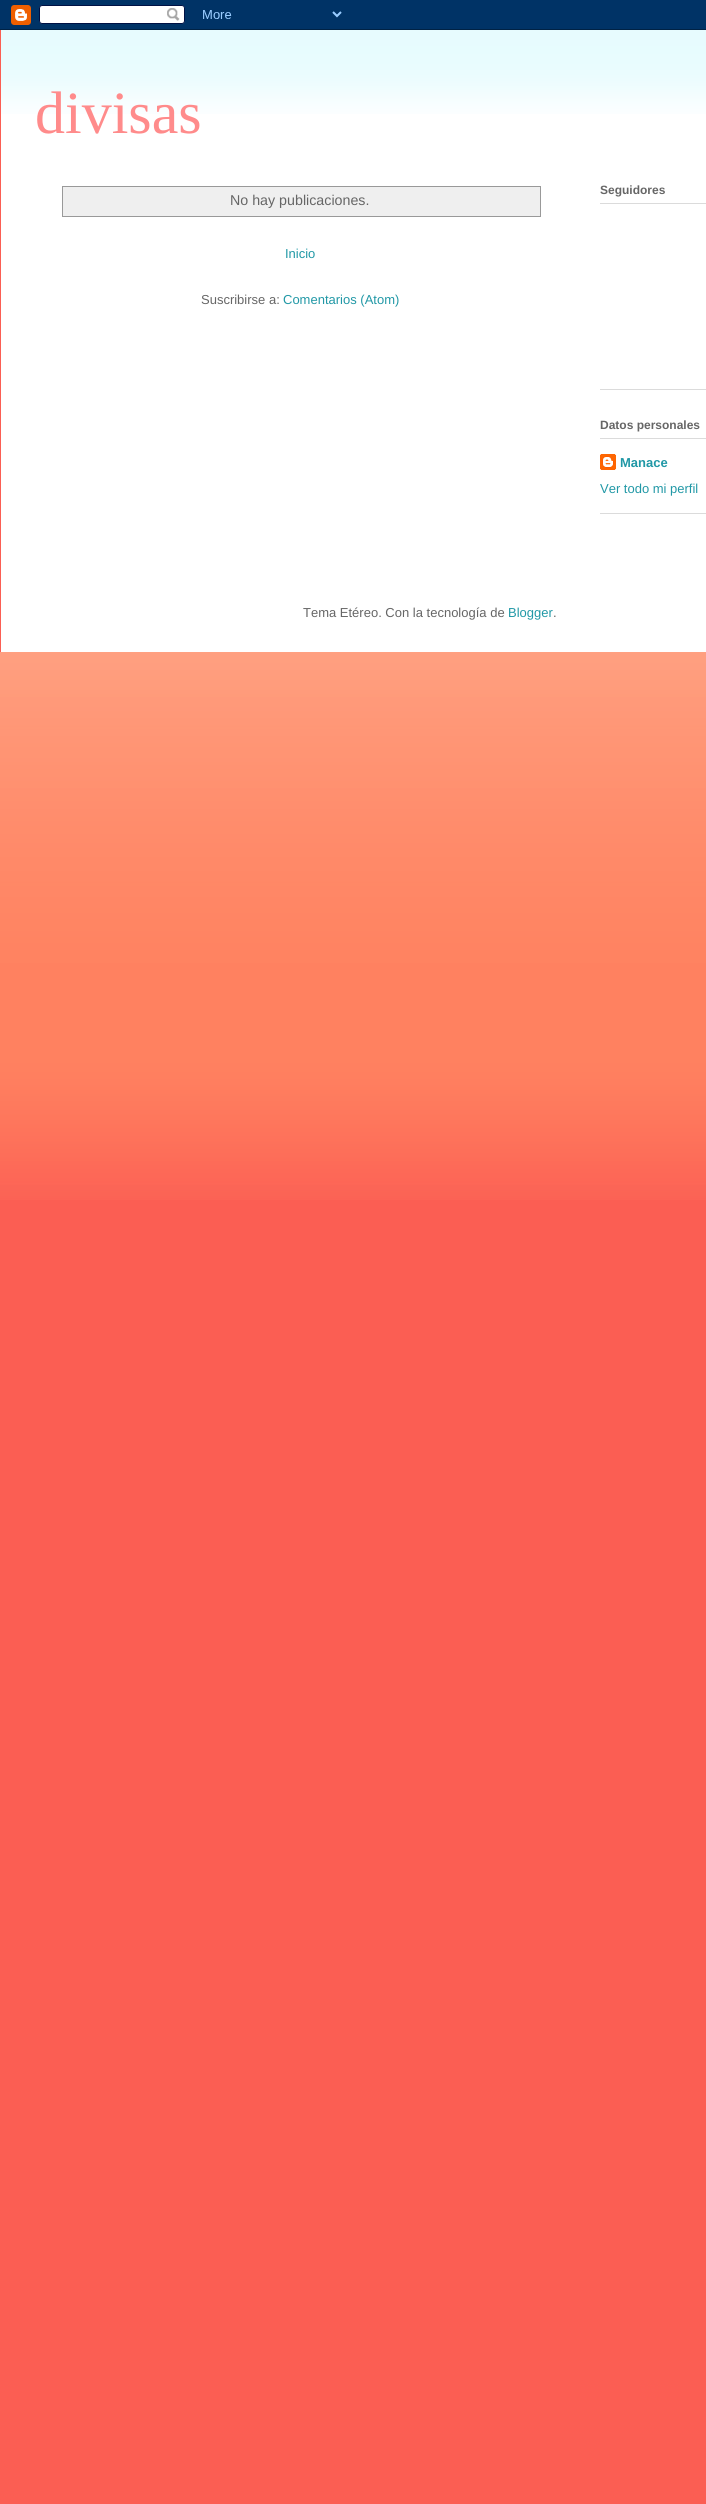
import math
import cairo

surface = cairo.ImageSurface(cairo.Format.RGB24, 706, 2504)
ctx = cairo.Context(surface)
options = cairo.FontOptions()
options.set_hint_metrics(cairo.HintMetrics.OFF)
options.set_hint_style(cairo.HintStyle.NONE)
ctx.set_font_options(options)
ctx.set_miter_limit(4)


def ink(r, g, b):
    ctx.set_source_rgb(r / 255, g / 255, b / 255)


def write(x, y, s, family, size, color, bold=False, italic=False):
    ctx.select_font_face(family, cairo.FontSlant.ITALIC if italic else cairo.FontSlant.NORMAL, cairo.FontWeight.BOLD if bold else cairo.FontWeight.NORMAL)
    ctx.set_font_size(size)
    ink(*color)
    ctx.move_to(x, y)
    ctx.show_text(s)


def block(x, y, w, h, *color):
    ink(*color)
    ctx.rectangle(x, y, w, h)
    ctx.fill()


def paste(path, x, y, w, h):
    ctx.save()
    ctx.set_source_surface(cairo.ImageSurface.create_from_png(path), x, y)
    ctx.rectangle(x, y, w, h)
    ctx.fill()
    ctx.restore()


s1 = dict(family="Liberation Serif", size=60, color=(255, 139, 139))
s2 = dict(family="Liberation Sans", size=14.25, color=(102, 102, 102))
s3 = dict(family="Liberation Sans", size=13, color=(33, 152, 166))
s4 = dict(family="Liberation Sans", size=13, color=(102, 102, 102))
s5 = dict(family="Liberation Sans", size=12, color=(102, 102, 102), bold=True)
s6 = dict(family="Liberation Sans", size=13, color=(33, 152, 166), bold=True)

ink(251, 94, 83)
ctx.paint()
paste("pic1.png", 0, 652, 706, 548)
paste("pic2.png", 0, 0, 706, 30)
block(1, 30, 705, 622, 255, 255, 255)
paste("pic3.png", 1, 30, 705, 84)
write(35, 133, "divisas", **s1)
ctx.rectangle(62.5, 186.5, 478, 30)
ink(153, 153, 153)
ctx.set_line_width(1)
ctx.stroke()
block(63, 187, 477, 29, 239, 239, 239)
write(230, 205, "No hay publicaciones.", **s2)
write(285, 258, "Inicio", **s3)
write(201, 304, "Suscribirse a:", **s4)
write(283, 304, "Comentarios (Atom)", **s3)
block(600, 389, 106, 1, 219, 219, 219)
block(600, 203, 106, 1, 219, 219, 219)
write(600, 194, "Seguidores", **s5)
block(600, 513, 106, 1, 219, 219, 219)
block(600, 438, 106, 1, 219, 219, 219)
write(600, 429, "Datos personales", **s5)
paste("pic4.png", 600, 454, 16, 16)
write(620, 467, "Manace", **s6)
write(600, 493, "Ver todo mi perfil", **s3)
write(303, 617, "Tema Etéreo. Con la tecnología de", **s4)
write(508, 617, "Blogger", **s3)
write(553, 617, ".", **s4)
surface.write_to_png("screenshot.png")
